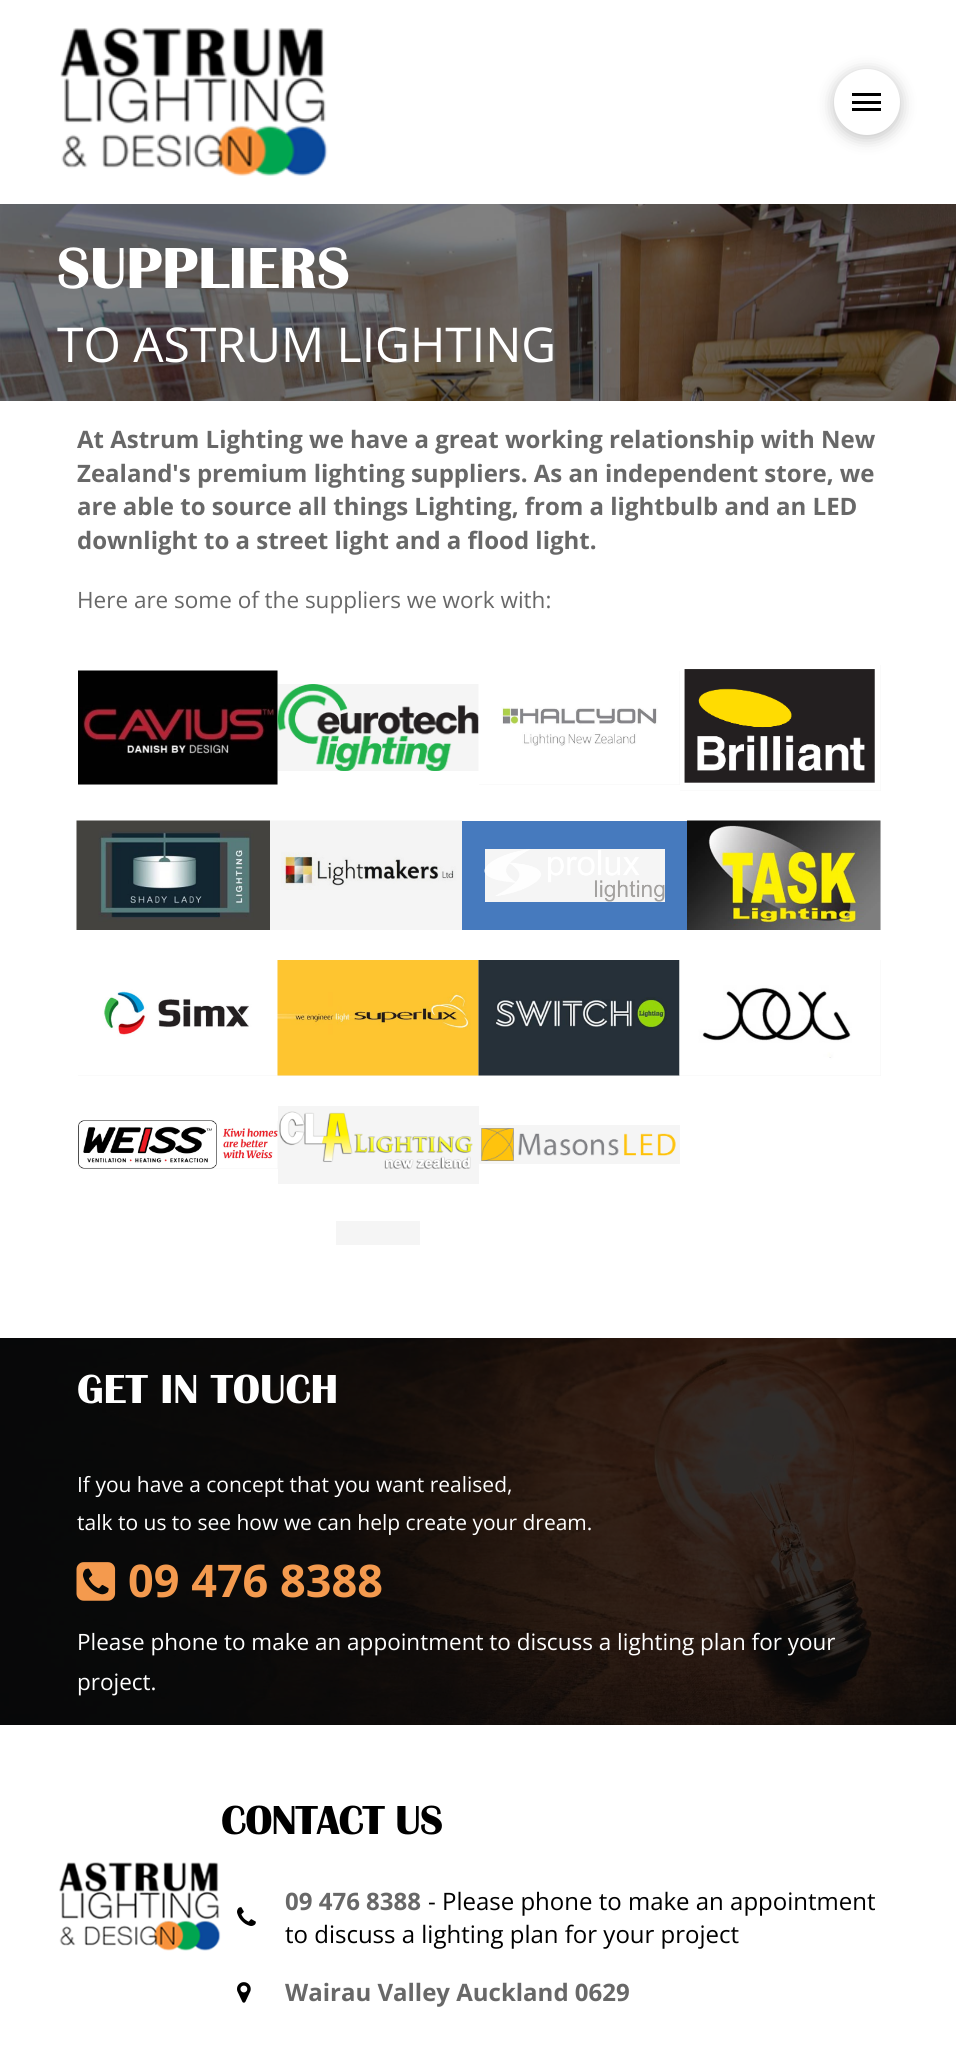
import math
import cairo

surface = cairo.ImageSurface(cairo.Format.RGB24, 956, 2057)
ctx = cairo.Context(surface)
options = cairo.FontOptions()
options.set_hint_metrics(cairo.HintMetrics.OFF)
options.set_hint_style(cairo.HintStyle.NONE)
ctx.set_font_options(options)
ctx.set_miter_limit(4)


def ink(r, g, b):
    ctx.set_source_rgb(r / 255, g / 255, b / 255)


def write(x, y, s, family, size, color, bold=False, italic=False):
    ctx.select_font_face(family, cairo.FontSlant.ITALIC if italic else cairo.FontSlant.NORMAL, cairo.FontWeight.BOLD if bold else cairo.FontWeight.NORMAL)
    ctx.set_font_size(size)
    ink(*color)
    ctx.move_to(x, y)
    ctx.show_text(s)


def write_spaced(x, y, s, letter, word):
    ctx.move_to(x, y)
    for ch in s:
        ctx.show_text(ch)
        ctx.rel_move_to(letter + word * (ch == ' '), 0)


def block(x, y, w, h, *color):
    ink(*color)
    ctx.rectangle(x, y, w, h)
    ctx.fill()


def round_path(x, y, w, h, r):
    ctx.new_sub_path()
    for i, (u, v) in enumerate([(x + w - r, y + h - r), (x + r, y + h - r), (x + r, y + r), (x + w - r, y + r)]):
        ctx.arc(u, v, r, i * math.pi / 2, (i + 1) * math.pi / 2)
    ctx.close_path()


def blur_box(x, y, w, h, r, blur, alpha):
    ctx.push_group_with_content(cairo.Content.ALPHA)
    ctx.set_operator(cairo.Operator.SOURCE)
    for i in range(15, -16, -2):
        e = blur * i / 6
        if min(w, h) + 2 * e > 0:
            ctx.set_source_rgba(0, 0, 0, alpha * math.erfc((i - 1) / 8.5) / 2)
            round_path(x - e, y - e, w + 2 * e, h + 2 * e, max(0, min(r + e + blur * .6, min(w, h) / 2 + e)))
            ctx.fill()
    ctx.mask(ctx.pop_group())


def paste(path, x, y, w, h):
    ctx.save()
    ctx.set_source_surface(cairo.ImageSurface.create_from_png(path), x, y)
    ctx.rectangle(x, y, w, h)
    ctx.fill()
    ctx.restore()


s1 = dict(family="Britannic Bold", size=60, color=(255, 255, 255), bold=True)
s2 = dict(family="Open Sans", size=48, color=(255, 255, 255))
s3 = dict(family="Open Sans", size=24, color=(104, 104, 104), bold=True)
s4 = dict(family="Open Sans", size=22.5, color=(104, 104, 104))
s5 = dict(family="Britannic Bold", size=42, color=(255, 255, 255), bold=True)
s6 = dict(family="Open Sans", size=21, color=(255, 255, 255))
s7 = dict(family="Open Sans", size=45, color=(244, 154, 78), bold=True)
s8 = dict(family="Open Sans", size=22.5, color=(255, 255, 255))
s9 = dict(family="Open Sans", size=24, color=(0, 0, 0))

ink(255, 255, 255)
ctx.paint()
paste("pic1.png", 60, 27, 268, 149)
ink(0, 0, 0)
blur_box(834, 72, 66, 66, 33, 8, 0.25)
ink(255, 255, 255)
ctx.arc(867, 102, 33, 0, 2 * math.pi)
ctx.fill()
block(852, 93, 29, 3, 0, 0, 0)
block(852, 101, 29, 3, 0, 0, 0)
block(852, 108, 29, 3, 0, 0, 0)
paste("pic2.png", 0, 204, 956, 197)
write(57, 288, "SUPPLIERS", **s1)
write(57, 362, "TO ASTRUM LIGHTING", **s2)
write(77, 448, "At Astrum Lighting we have a great working relationship with New", **s3)
write(77, 482, "Zealand's premium lighting suppliers. As an independent store, we", **s3)
write(77, 515, "are able to source all things Lighting, from a lightbulb and an LED", **s3)
write(77, 549, "downlight to a street light and a flood light.", **s3)
write(77, 608, "Here are some of the suppliers we work with:", **s4)
block(78, 671, 200, 114, 245, 245, 245)
paste("pic3.png", 78, 670, 200, 115)
block(278, 684, 201, 87, 245, 245, 245)
paste("pic4.png", 277, 684, 202, 87)
block(479, 671, 201, 114, 245, 245, 245)
paste("pic5.png", 478, 671, 202, 114)
block(680, 665, 201, 126, 245, 245, 245)
paste("pic6.png", 680, 665, 201, 126)
paste("pic7.png", 76, 820, 194, 110)
block(270, 890, 192, 40, 245, 245, 245)
paste("pic8.png", 270, 820, 192, 70)
block(462, 821, 225, 109, 70, 122, 190)
block(485, 849, 180, 53, 245, 245, 245)
paste("pic9.png", 484, 849, 181, 53)
block(880, 821, 1, 109, 245, 245, 245)
paste("pic10.png", 687, 820, 194, 110)
block(78, 960, 803, 116, 245, 245, 245)
paste("pic11.png", 78, 960, 200, 116)
paste("pic12.png", 277, 960, 202, 116)
paste("pic13.png", 478, 960, 202, 116)
paste("pic14.png", 679, 960, 202, 116)
block(78, 1121, 200, 48, 245, 245, 245)
paste("pic15.png", 78, 1120, 200, 49)
block(278, 1106, 201, 78, 245, 245, 245)
paste("pic16.png", 279, 1111, 194, 58)
block(479, 1125, 201, 39, 245, 245, 245)
paste("pic17.png", 481, 1128, 195, 33)
block(336, 1221, 84, 24, 245, 245, 245)
paste("pic18.png", 0, 1338, 956, 387)
write(77, 1403, "GET IN TOUCH", **s5)
write(77, 1492, "If you have a concept that you want realised,", **s6)
write(77, 1530, "talk to us to see how we can help create your dream.", **s6)
paste("pic19.png", 76, 1562, 40, 39)
write(128, 1597, "09 476 8388", **s7)
write(77, 1650, "Please phone to make an appointment to discuss a lighting plan for your", **s8)
write(77, 1690, "project.", **s8)
paste("pic20.png", 59, 1862, 162, 89)
ctx.select_font_face("Britannic Bold", cairo.FontSlant.NORMAL, cairo.FontWeight.BOLD)
ctx.set_font_size(42)
ink(0, 0, 0)
write_spaced(221, 1834, "CONTACT US", -0.9, 0)
paste("pic21.png", 237, 1907, 19, 19)
write(285, 1910, "09 476 8388", **s3)
write(428, 1910, "- Please phone to make an appointment", **s9)
write(285, 1943, "to discuss a lighting plan for your project", **s9)
paste("pic22.png", 237, 1982, 14, 21)
write(285, 2001, "Wairau Valley Auckland 0629", **s3)
surface.write_to_png("screenshot.png")
